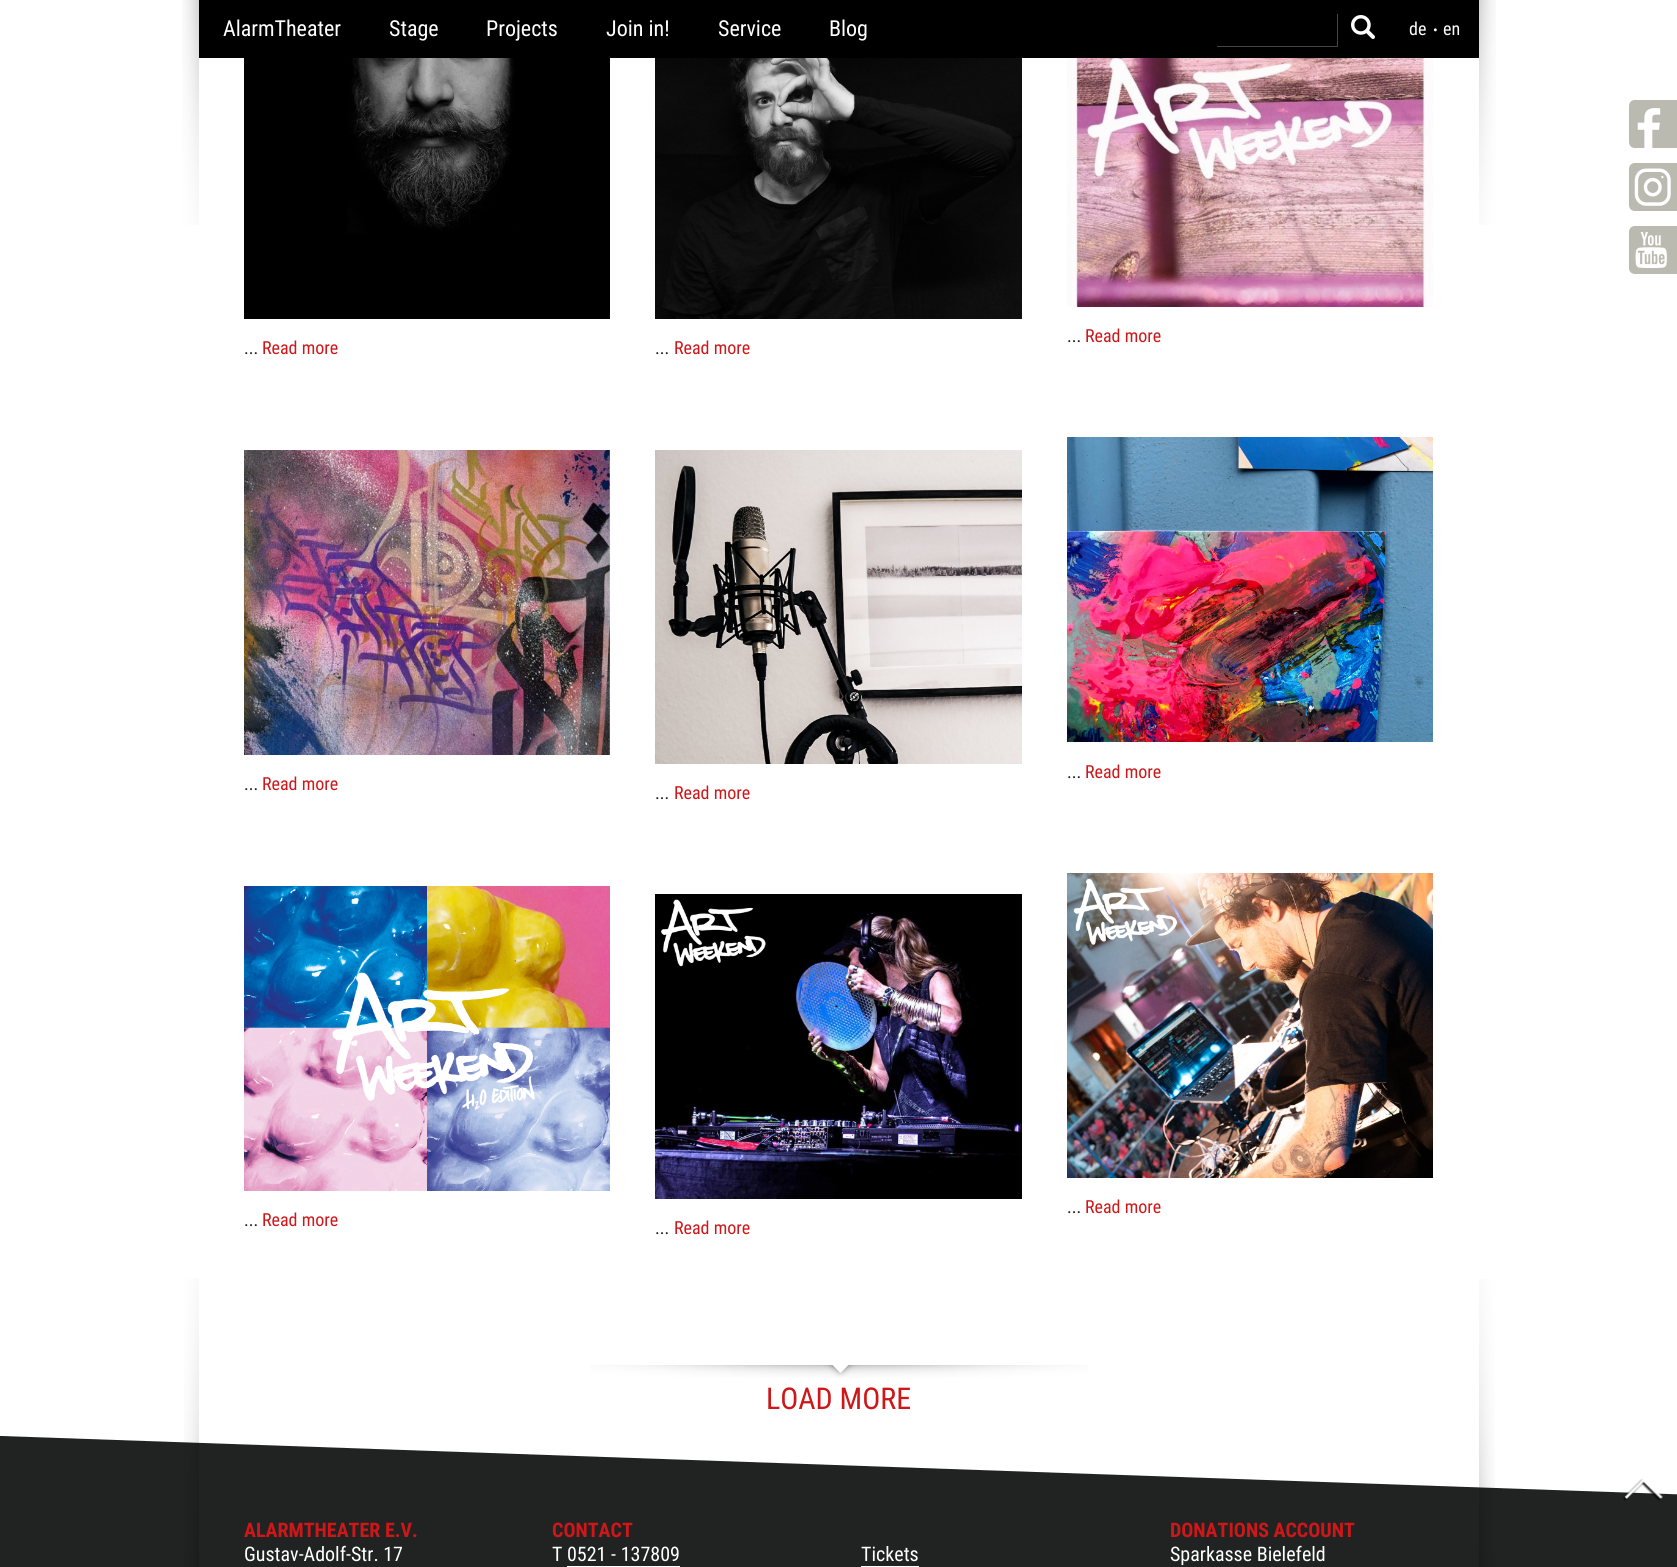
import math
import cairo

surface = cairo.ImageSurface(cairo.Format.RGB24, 1677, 1567)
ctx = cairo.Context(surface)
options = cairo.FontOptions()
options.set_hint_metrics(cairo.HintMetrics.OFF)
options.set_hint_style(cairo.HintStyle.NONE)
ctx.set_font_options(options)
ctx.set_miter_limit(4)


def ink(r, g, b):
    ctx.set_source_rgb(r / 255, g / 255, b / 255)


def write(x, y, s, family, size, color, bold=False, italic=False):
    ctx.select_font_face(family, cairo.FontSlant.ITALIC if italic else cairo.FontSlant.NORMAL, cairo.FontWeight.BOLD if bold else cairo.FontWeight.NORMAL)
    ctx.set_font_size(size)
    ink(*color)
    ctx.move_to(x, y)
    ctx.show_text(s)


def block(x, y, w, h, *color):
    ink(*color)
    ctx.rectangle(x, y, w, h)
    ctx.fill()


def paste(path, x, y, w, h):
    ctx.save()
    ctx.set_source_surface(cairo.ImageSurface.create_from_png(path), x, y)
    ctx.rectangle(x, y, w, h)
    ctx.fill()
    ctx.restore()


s1 = dict(family="Roboto Condensed", size=22, color=(255, 255, 255))
s2 = dict(family="Roboto Condensed", size=18, color=(255, 255, 255))
s3 = dict(family="Roboto Condensed", size=14, color=(255, 255, 255))
s4 = dict(family="Roboto Condensed", size=18, color=(33, 35, 34))
s5 = dict(family="Roboto Condensed", size=18, color=(205, 23, 25))
s6 = dict(family="Roboto Condensed", size=30, color=(205, 23, 25))
s7 = dict(family="Roboto Condensed", size=20, color=(205, 23, 25), bold=True)
s8 = dict(family="Roboto Condensed", size=20, color=(255, 255, 255))

ink(255, 255, 255)
ctx.paint()
paste("pic1.png", 182, 0, 17, 225)
block(199, 0, 1280, 58, 0, 0, 0)
write(223, 36, "AlarmTheater", **s1)
write(389, 36, "Stage", **s1)
write(486, 36, "Projects", **s1)
write(606, 36, "Join in!", **s1)
write(718, 36, "Service", **s1)
write(829, 36, "Blog", **s1)
block(1337, 14, 1, 33, 70, 69, 69)
block(1217, 46, 121, 1, 70, 69, 69)
paste("pic2.png", 1351, 15, 24, 24)
write(1409, 35, "de", **s2)
write(1433, 35, "•", **s3)
write(1443, 35, "en", **s2)
paste("pic3.png", 1479, 0, 17, 225)
block(0, 1435, 1677, 132, 33, 35, 34)
ctx.save()
ctx.rectangle(0, 1430, 1677, 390)
ctx.clip()
ink(255, 255, 255)
ctx.new_path()
ctx.move_to(-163, 1180)
ctx.line_to(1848, 1250)
ctx.line_to(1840, 1500)
ctx.line_to(-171, 1430)
ctx.close_path()
ctx.fill()
ctx.restore()
paste("pic4.png", 184, 1278, 15, 289)
ink(187, 186, 176)
ctx.new_path()
ctx.move_to(1635, 100)
ctx.line_to(1677, 100)
ctx.line_to(1677, 148)
ctx.line_to(1635, 148)
ctx.curve_to(1631.5, 148, 1629, 145.5, 1629, 142)
ctx.line_to(1629, 106)
ctx.curve_to(1629, 102.5, 1631.5, 100, 1635, 100)
ctx.close_path()
ctx.fill()
paste("pic5.png", 1637, 108, 24, 40)
ctx.new_path()
ctx.move_to(1635, 163)
ctx.line_to(1677, 163)
ctx.line_to(1677, 211)
ctx.line_to(1635, 211)
ctx.curve_to(1631.5, 211, 1629, 208.5, 1629, 205)
ctx.line_to(1629, 169)
ctx.curve_to(1629, 165.5, 1631.5, 163, 1635, 163)
ctx.close_path()
ctx.fill()
paste("pic6.png", 1634, 168, 37, 38)
ctx.new_path()
ctx.move_to(1635, 226)
ctx.line_to(1677, 226)
ctx.line_to(1677, 274)
ctx.line_to(1635, 274)
ctx.curve_to(1631.5, 274, 1629, 271.5, 1629, 268)
ctx.line_to(1629, 232)
ctx.curve_to(1629, 228.5, 1631.5, 226, 1635, 226)
ctx.close_path()
ctx.fill()
paste("pic7.png", 1635, 231, 32, 38)
paste("pic8.png", 244, 58, 366, 261)
write(244, 354, "...", **s4)
write(262, 354, "Read more", **s5)
paste("pic9.png", 244, 450, 366, 305)
write(244, 790, "...", **s4)
write(262, 790, "Read more", **s5)
paste("pic10.png", 244, 886, 366, 305)
write(244, 1226, "...", **s4)
write(262, 1226, "Read more", **s5)
paste("pic11.png", 655, 58, 367, 261)
write(655, 354, "...", **s4)
write(674, 354, "Read more", **s5)
paste("pic12.png", 655, 450, 367, 314)
write(655, 799, "...", **s4)
write(674, 799, "Read more", **s5)
paste("pic13.png", 655, 894, 367, 305)
write(655, 1234, "...", **s4)
write(674, 1234, "Read more", **s5)
paste("pic14.png", 1067, 58, 366, 249)
write(1067, 342, "...", **s4)
write(1085, 342, "Read more", **s5)
paste("pic15.png", 1067, 437, 366, 305)
write(1067, 778, "...", **s4)
write(1085, 778, "Read more", **s5)
paste("pic16.png", 1067, 873, 366, 305)
write(1067, 1213, "...", **s4)
write(1085, 1213, "Read more", **s5)
paste("pic17.png", 590, 1365, 498, 13)
write(766, 1409, "LOAD MORE", **s6)
paste("pic18.png", 1479, 1279, 16, 288)
paste("pic19.png", 1623, 1478, 40, 23)
write(244, 1537, "ALARMTHEATER E.V.", **s7)
write(244, 1561, "Gustav-Adolf-Str. 17", **s8)
write(552, 1537, "CONTACT", **s7)
write(552, 1561, "T 0521 - 137809", **s8)
block(567, 1566, 113, 1, 255, 255, 255)
write(861, 1561, "Tickets", **s8)
block(861, 1566, 58, 1, 255, 255, 255)
write(1170, 1537, "DONATIONS ACCOUNT", **s7)
write(1170, 1561, "Sparkasse Bielefeld", **s8)
surface.write_to_png("screenshot.png")
